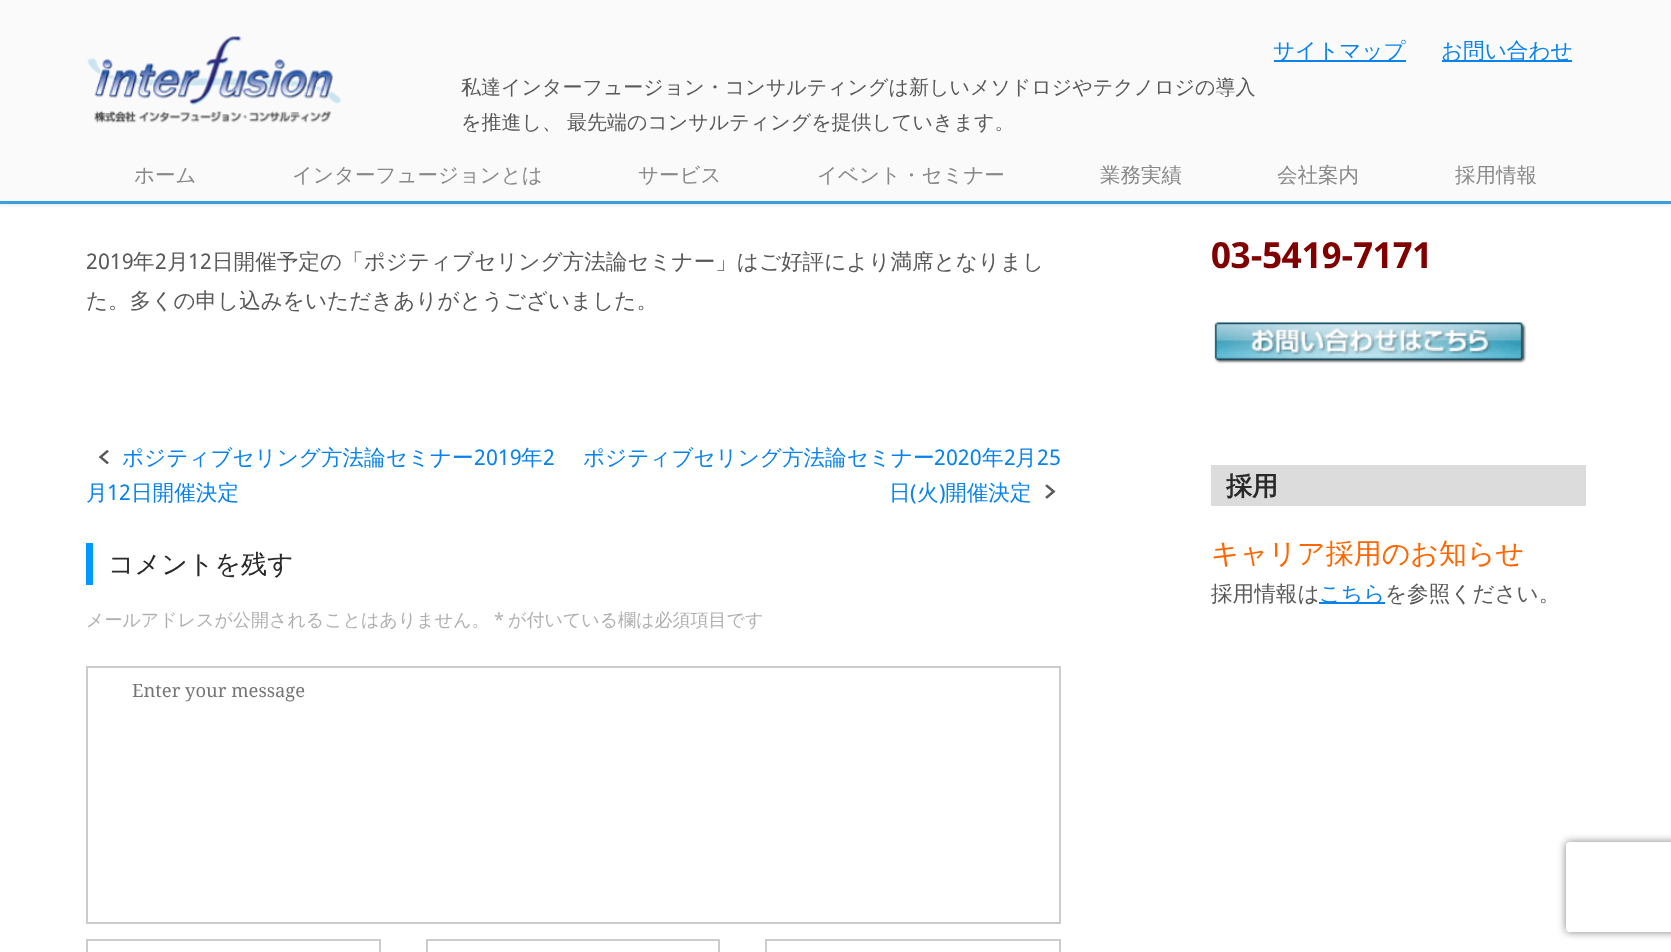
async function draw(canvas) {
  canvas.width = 1671;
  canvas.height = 952;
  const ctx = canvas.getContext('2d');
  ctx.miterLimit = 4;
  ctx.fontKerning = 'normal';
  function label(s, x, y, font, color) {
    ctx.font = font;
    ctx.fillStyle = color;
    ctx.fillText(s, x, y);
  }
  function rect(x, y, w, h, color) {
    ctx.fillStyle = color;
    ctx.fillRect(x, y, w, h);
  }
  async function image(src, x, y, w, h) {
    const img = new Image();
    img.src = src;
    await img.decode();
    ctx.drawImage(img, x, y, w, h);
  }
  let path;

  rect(0, 0, 1671, 952, '#fff');
  ctx.fillStyle = '#00000012';
  ctx.filter = 'blur(1px)';
  ctx.beginPath();
  ctx.rect(0, 2, 1671, 204);
  ctx.fill();
  ctx.filter = 'none';
  rect(0, 0, 1671, 201, '#fafafa');
  rect(0, 201, 1671, 3, '#3a9fdd');
  rect(1274, 60, 132, 2, '#0982ed');
  label('サイトマップ', 1273, 58, '500 21.6px WenQuanYi Zen Hei', '#0982ed');
  rect(1442, 60, 130, 2, '#0982ed');
  label('お問い合わせ', 1441, 58, '500 21.6px WenQuanYi Zen Hei', '#0982ed');
  await image('assets/img1.png', 87, 36, 254, 88);
  label('私達インターフュージョン・コンサルティングは新しいメソドロジやテクノロジの導入', 461, 94, '500 20px WenQuanYi Zen Hei', '#595959');
  ctx.wordSpacing = '-1px';
  label('を推進し、 最先端のコンサルティングを提供していきます。', 461, 129, '500 20px WenQuanYi Zen Hei', '#595959');
  ctx.wordSpacing = '0px';
  label('ホーム', 134, 182, '500 20.5px WenQuanYi Zen Hei', '#898989');
  label('インターフュージョンとは', 292, 182, '500 20.5px WenQuanYi Zen Hei', '#898989');
  label('サービス', 638, 182, '500 20.5px WenQuanYi Zen Hei', '#898989');
  label('イベント・セミナー', 817, 182, '500 20.5px WenQuanYi Zen Hei', '#898989');
  label('業務実績', 1100, 182, '500 20.5px WenQuanYi Zen Hei', '#898989');
  label('会社案内', 1277, 182, '500 20.5px WenQuanYi Zen Hei', '#898989');
  label('採用情報', 1455, 182, '500 20.5px WenQuanYi Zen Hei', '#898989');
  label('2019', 86, 269, '21.6px Droid Sans', '#595959');
  label('年', 133, 269, '500 21.6px WenQuanYi Zen Hei', '#595959');
  label('2', 155, 269, '21.6px Droid Sans', '#595959');
  label('月', 167, 269, '500 21.6px WenQuanYi Zen Hei', '#595959');
  label('12', 188, 269, '21.6px Droid Sans', '#595959');
  label('日開催予定の「ポジティブセリング方法論セミナー」はご好評により満席となりまし', 212, 269, '500 21.6px WenQuanYi Zen Hei', '#595959');
  label('た。多くの申し込みをいただきありがとうございました。', 86, 308, '500 21.6px WenQuanYi Zen Hei', '#595959');
  await image('assets/img2.png', 98, 450, 11, 15);
  label('ポジティブセリング方法論セミナー', 122, 465, '500 21.6px WenQuanYi Zen Hei', '#0982ed');
  label('2019', 474, 465, '21.6px Droid Sans', '#0982ed');
  label('年', 521, 465, '500 21.6px WenQuanYi Zen Hei', '#0982ed');
  label('2', 543, 465, '21.6px Droid Sans', '#0982ed');
  label('月', 86, 500, '500 21.6px WenQuanYi Zen Hei', '#0982ed');
  label('12', 107, 500, '21.6px Droid Sans', '#0982ed');
  label('日開催決定', 131, 500, '500 21.6px WenQuanYi Zen Hei', '#0982ed');
  label('ポジティブセリング方法論セミナー', 583, 465, '500 21.6px WenQuanYi Zen Hei', '#0982ed');
  label('2020', 934, 465, '21.6px Droid Sans', '#0982ed');
  label('年', 982, 465, '500 21.6px WenQuanYi Zen Hei', '#0982ed');
  label('2', 1004, 465, '21.6px Droid Sans', '#0982ed');
  label('月', 1015, 465, '500 21.6px WenQuanYi Zen Hei', '#0982ed');
  label('25', 1037, 465, '21.6px Droid Sans', '#0982ed');
  label('日 火 開催決定', 889, 500, '500 21.6px WenQuanYi Zen Hei', '#0982ed');
  label('(', 910, 500, '21.6px Droid Sans', '#0982ed');
  label(')', 939, 500, '21.6px Droid Sans', '#0982ed');
  await image('assets/img3.png', 1045, 484, 11, 15);
  rect(86, 543, 7, 42, '#09f');
  label('コメントを残す', 108, 573, '500 26px WenQuanYi Zen Hei', '#292929');
  label('メールアドレスが公開されることはありません。', 86, 626, '500 18px WenQuanYi Zen Hei', '#b0b0b0');
  label('*', 494, 626, '18px Droid Sans', '#b0b0b0');
  label('が付いている欄は必須項目です', 508, 626, '500 18px WenQuanYi Zen Hei', '#b0b0b0');
  ctx.strokeStyle = '#ccc';
  ctx.lineWidth = 2;
  ctx.strokeRect(87, 667, 973, 256);
  label('Enter your message', 132, 697, '18.4px Droid Serif', '#757575');
  ctx.strokeRect(87, 940, 293, 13);
  ctx.strokeRect(427, 940, 292, 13);
  ctx.strokeRect(766, 940, 294, 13);
  label('03-5419-7171', 1211, 268, 'bold 36px Droid Sans', '#800000');
  await image('assets/img4.png', 1214, 322, 313, 42);
  rect(1211, 465, 375, 41, '#dcdcdc');
  label('採用', 1226, 495, 'bold 26px WenQuanYi Zen Hei', '#292929');
  label('キャリア採用のお知らせ', 1211, 563, '500 28px WenQuanYi Zen Hei', '#f60');
  label('採用情報は', 1211, 601, '500 21.6px WenQuanYi Zen Hei', '#595959');
  rect(1319, 602, 66, 2, '#0982ed');
  label('こちら', 1319, 601, '500 21.6px WenQuanYi Zen Hei', '#0982ed');
  label('を参照ください。', 1385, 601, '500 21.6px WenQuanYi Zen Hei', '#595959');
  ctx.save();
  path = new Path2D('M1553 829H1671V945H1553ZM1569 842H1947C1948.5 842 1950 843.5 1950 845V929C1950 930.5 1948.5 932 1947 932H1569C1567.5 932 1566 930.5 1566 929V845C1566 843.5 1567.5 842 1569 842Z');
  ctx.clip(path, 'evenodd');
  ctx.fillStyle = '#808080';
  ctx.filter = 'blur(4px)';
  ctx.beginPath();
  ctx.roundRect(1566, 842, 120, 90, 3);
  ctx.fill();
  ctx.filter = 'none';
  ctx.restore();
}

draw(document.querySelector('canvas'));
